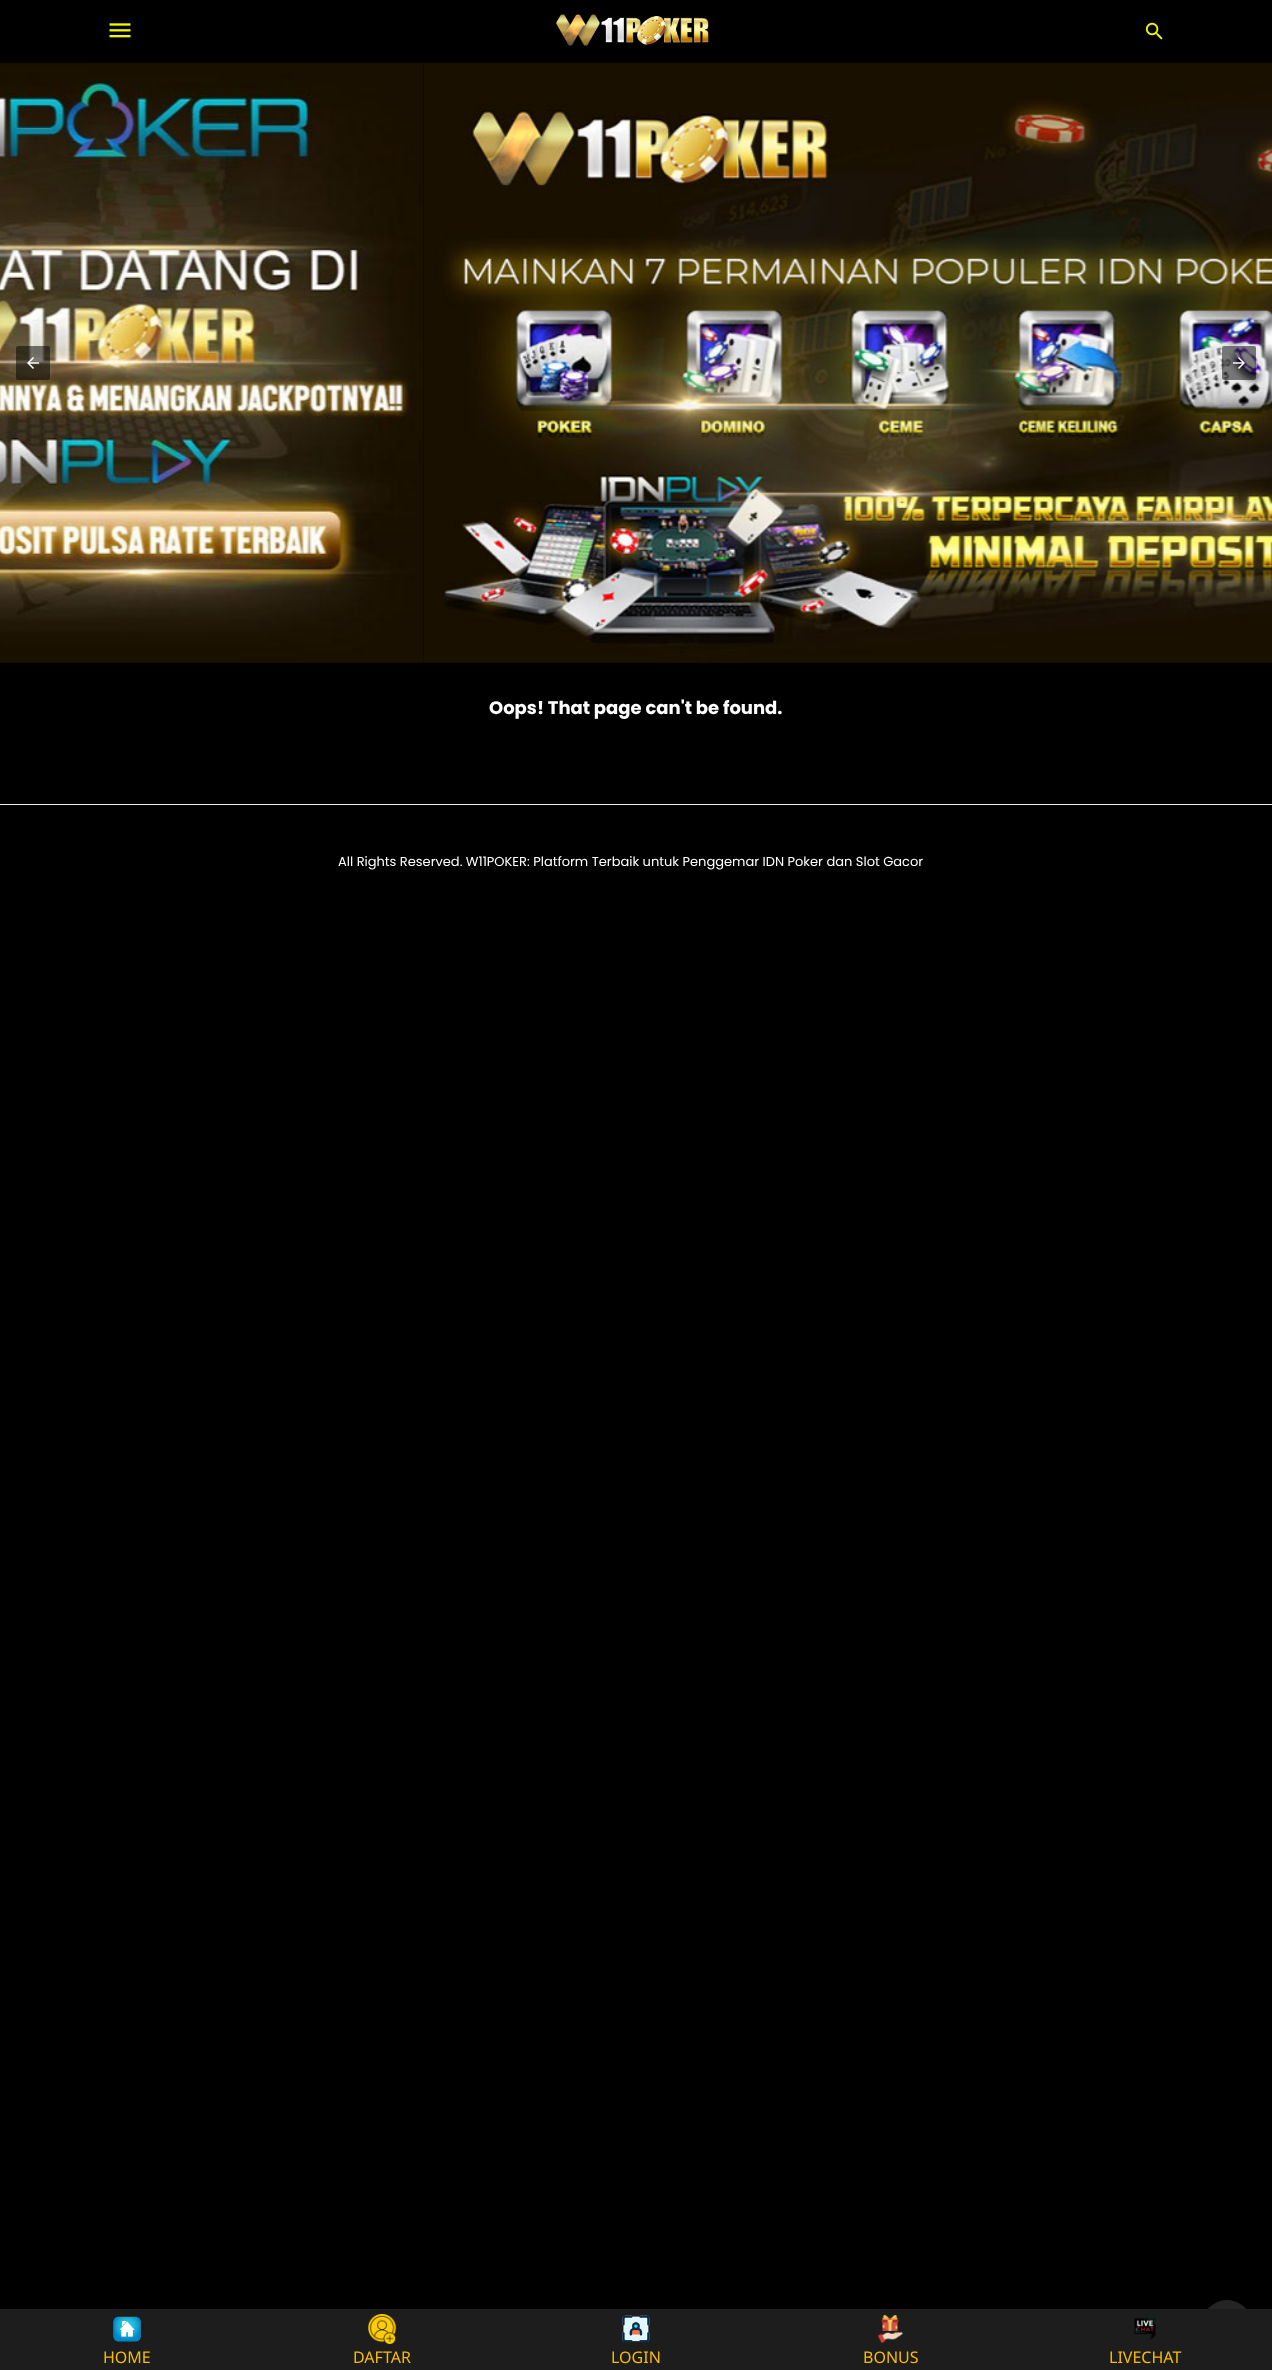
async function draw(canvas) {
  canvas.width = 1272;
  canvas.height = 2370;
  const ctx = canvas.getContext('2d');
  ctx.miterLimit = 4;
  ctx.fontKerning = 'normal';
  function label(s, x, y, font, color) {
    ctx.font = font;
    ctx.fillStyle = color;
    ctx.fillText(s, x, y);
  }
  function rect(x, y, w, h, color) {
    ctx.fillStyle = color;
    ctx.fillRect(x, y, w, h);
  }
  function roundedRect(x, y, w, h, r, color) {
    ctx.fillStyle = color;
    ctx.beginPath();
    ctx.roundRect(x, y, w, h, r);
    ctx.fill();
  }
  async function image(src, x, y, w, h) {
    const img = new Image();
    img.src = src;
    await img.decode();
    ctx.drawImage(img, x, y, w, h);
  }

  rect(0, 0, 1272, 2370, '#000');
  await image('assets/img1.png', 109, 23, 22, 15);
  await image('assets/img2.png', 556, 14, 153, 32);
  await image('assets/img3.png', 1145, 22, 18, 18);
  await image('assets/img4.png', 0, 63, 424, 600);
  await image('assets/img5.png', 424, 63, 848, 600);
  roundedRect(16, 346, 34, 34, 2, '#00000080');
  await image('assets/img6.png', 27, 357, 12, 12);
  roundedRect(1222, 346, 34, 34, 2, '#00000080');
  await image('assets/img7.png', 1233, 357, 12, 12);
  label('Oops! That page can\'t be found.', 489, 714, 'bold 18px Poppins', '#fff');
  rect(0, 804, 1272, 1, '#eee');
  label('All Rights Reserved. W11POKER: Platform Terbaik untuk Penggemar IDN Poker dan Slot Gacor', 338, 866, '13px Poppins', '#fff');
  ctx.fillStyle = '#242424';
  ctx.beginPath();
  ctx.arc(1227, 2325, 25, 0, 2 * Math.PI);
  ctx.fill();
  rect(0, 2309, 1272, 61, '#1d1d1d');
  await image('assets/img8.png', 113, 2316, 28, 26);
  label('HOME', 103, 2363, '16px Noto Sans', '#f9bc00');
  await image('assets/img9.png', 368, 2314, 29, 30);
  label('DAFTAR', 353, 2363, '16px Noto Sans', '#f9bc00');
  await image('assets/img10.png', 622, 2315, 28, 28);
  label('LOGIN', 611, 2363, '16px Noto Sans', '#f9bc00');
  await image('assets/img11.png', 877, 2315, 27, 29);
  label('BONUS', 863, 2363, '16px Noto Sans', '#f9bc00');
  await image('assets/img12.png', 1134, 2318, 22, 22);
  label('LIVECHAT', 1109, 2363, '16px Noto Sans', '#f9bc00');
}

draw(document.querySelector('canvas'));
